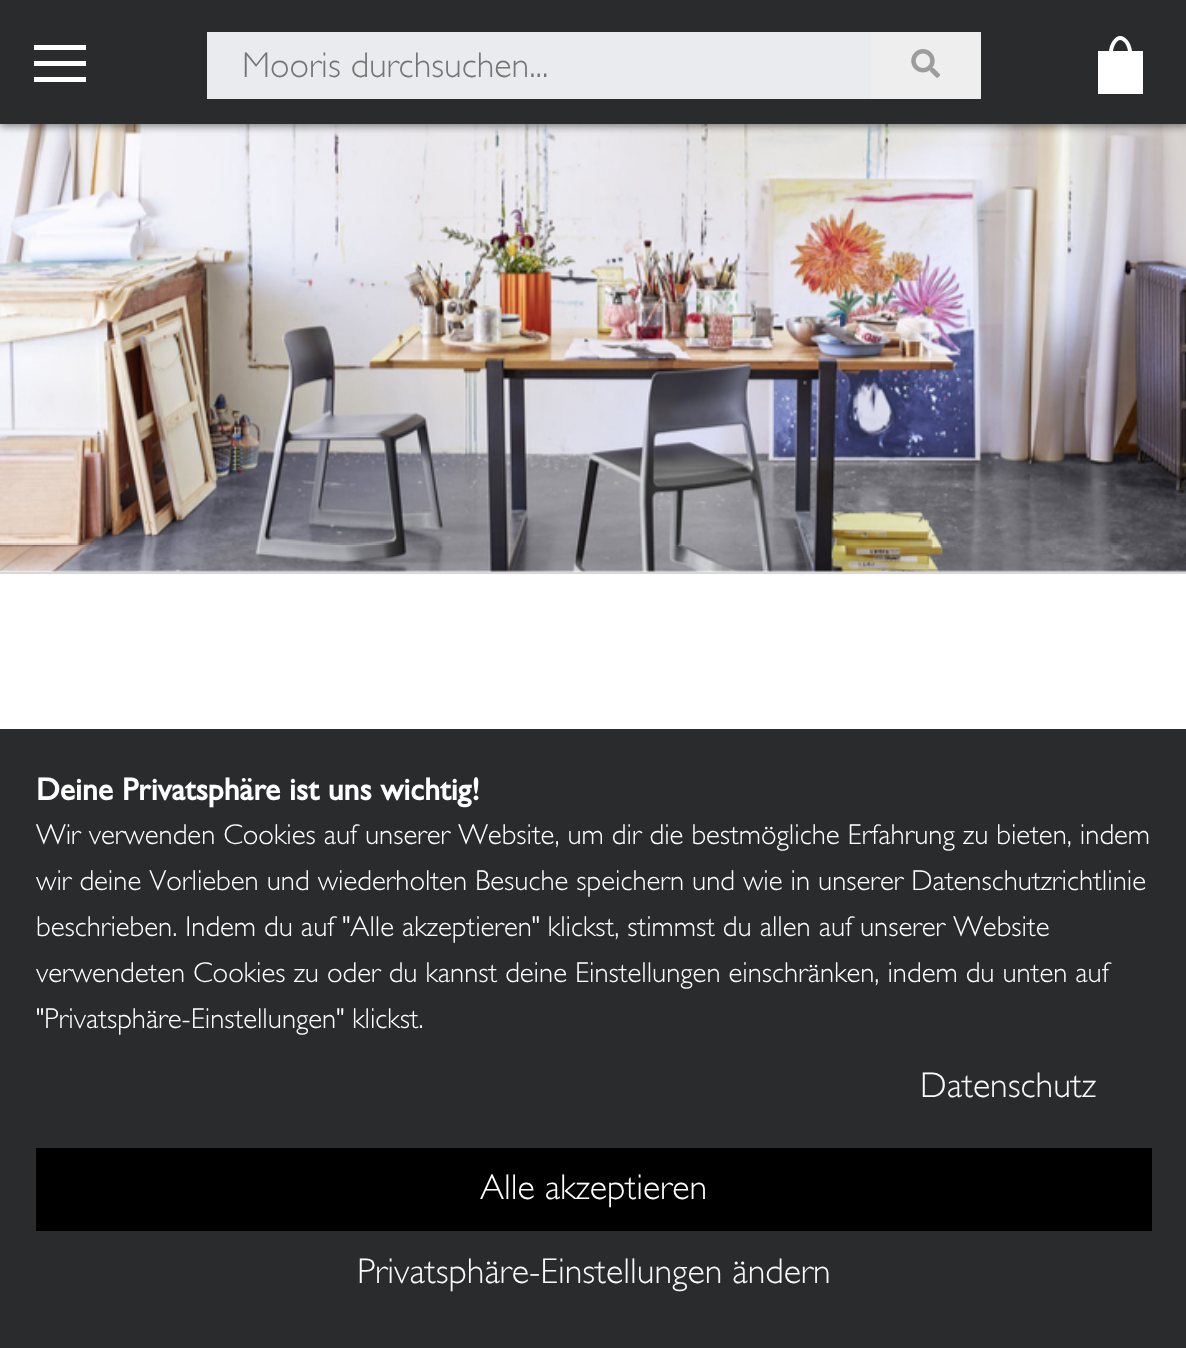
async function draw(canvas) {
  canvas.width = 1186;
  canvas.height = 1348;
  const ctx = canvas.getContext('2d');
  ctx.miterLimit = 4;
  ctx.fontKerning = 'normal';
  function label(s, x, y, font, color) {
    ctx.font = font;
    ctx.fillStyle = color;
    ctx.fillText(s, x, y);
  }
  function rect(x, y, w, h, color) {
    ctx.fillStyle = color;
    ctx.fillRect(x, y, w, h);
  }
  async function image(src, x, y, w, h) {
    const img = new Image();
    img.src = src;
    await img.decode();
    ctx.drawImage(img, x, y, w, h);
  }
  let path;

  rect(0, 0, 1186, 1348, '#fff');
  await image('assets/img2.png', 0, 124, 1186, 448);
  ctx.fillStyle = '#00000080';
  ctx.filter = 'blur(4.5px)';
  ctx.beginPath();
  ctx.rect(0, 2, 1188, 124);
  ctx.fill();
  ctx.filter = 'none';
  rect(0, 0, 1186, 124, '#292b2c');
  rect(34, 61, 52, 5, '#fff');
  rect(34, 45, 52, 5, '#fff');
  rect(34, 77, 52, 5, '#fff');
  rect(207, 32, 774, 67, '#e9ebef');
  label('Mooris durchsuchen...', 242, 77, '300 36px Gill Sans', '#757575');
  ctx.fillStyle = '#eee';
  ctx.beginPath();
  ctx.roundRect(871, 32, 110, 67, [0, 5, 5, 0]);
  ctx.fill();
  await image('assets/img1.png', 911, 49, 29, 29);
  ctx.fillStyle = '#fff';
  path = new Path2D('M1120 36C1126 36 1131 43 1132 51H1143V94H1098V51H1109C1110 43 1115 36 1120 36ZM1120 40C1117 40 1114 45 1113 51H1128C1127 45 1124 40 1120 40Z');
  ctx.fill(path);
  rect(0, 572, 1186, 2, '#d8d8d8');
  rect(0, 729, 1186, 619, '#292b2c');
  label('Deine Privatsphäre ist uns wichtig!', 36, 800, 'bold 31.75px Gill Sans', '#fff');
  label('Wir verwenden Cookies auf unserer Website, um dir die bestmögliche Erfahrung zu bieten, indem', 36, 844, '300 28.8px Gill Sans', '#fff');
  label('wir deine Vorlieben und wiederholten Besuche speichern und wie in unserer Datenschutzrichtlinie', 36, 890, '300 28.8px Gill Sans', '#fff');
  label('beschrieben. Indem du auf "Alle akzeptieren" klickst, stimmst du allen auf unserer Website', 36, 936, '300 28.8px Gill Sans', '#fff');
  label('verwendeten Cookies zu oder du kannst deine Einstellungen einschränken, indem du unten auf', 36, 982, '300 28.8px Gill Sans', '#fff');
  label('"Privatsphäre-Einstellungen" klickst.', 36, 1028, '300 28.8px Gill Sans', '#fff');
  label('Datenschutz', 920, 1097, '300 36px Gill Sans', '#f8f9fa');
  rect(36, 1148, 1116, 83, '#000');
  label('Alle akzeptieren', 480, 1199, '300 36px Gill Sans', '#fff');
  label('Privatsphäre-Einstellungen ändern', 357, 1283, '300 36px Gill Sans', '#f8f9fa');
}

draw(document.querySelector('canvas'));
